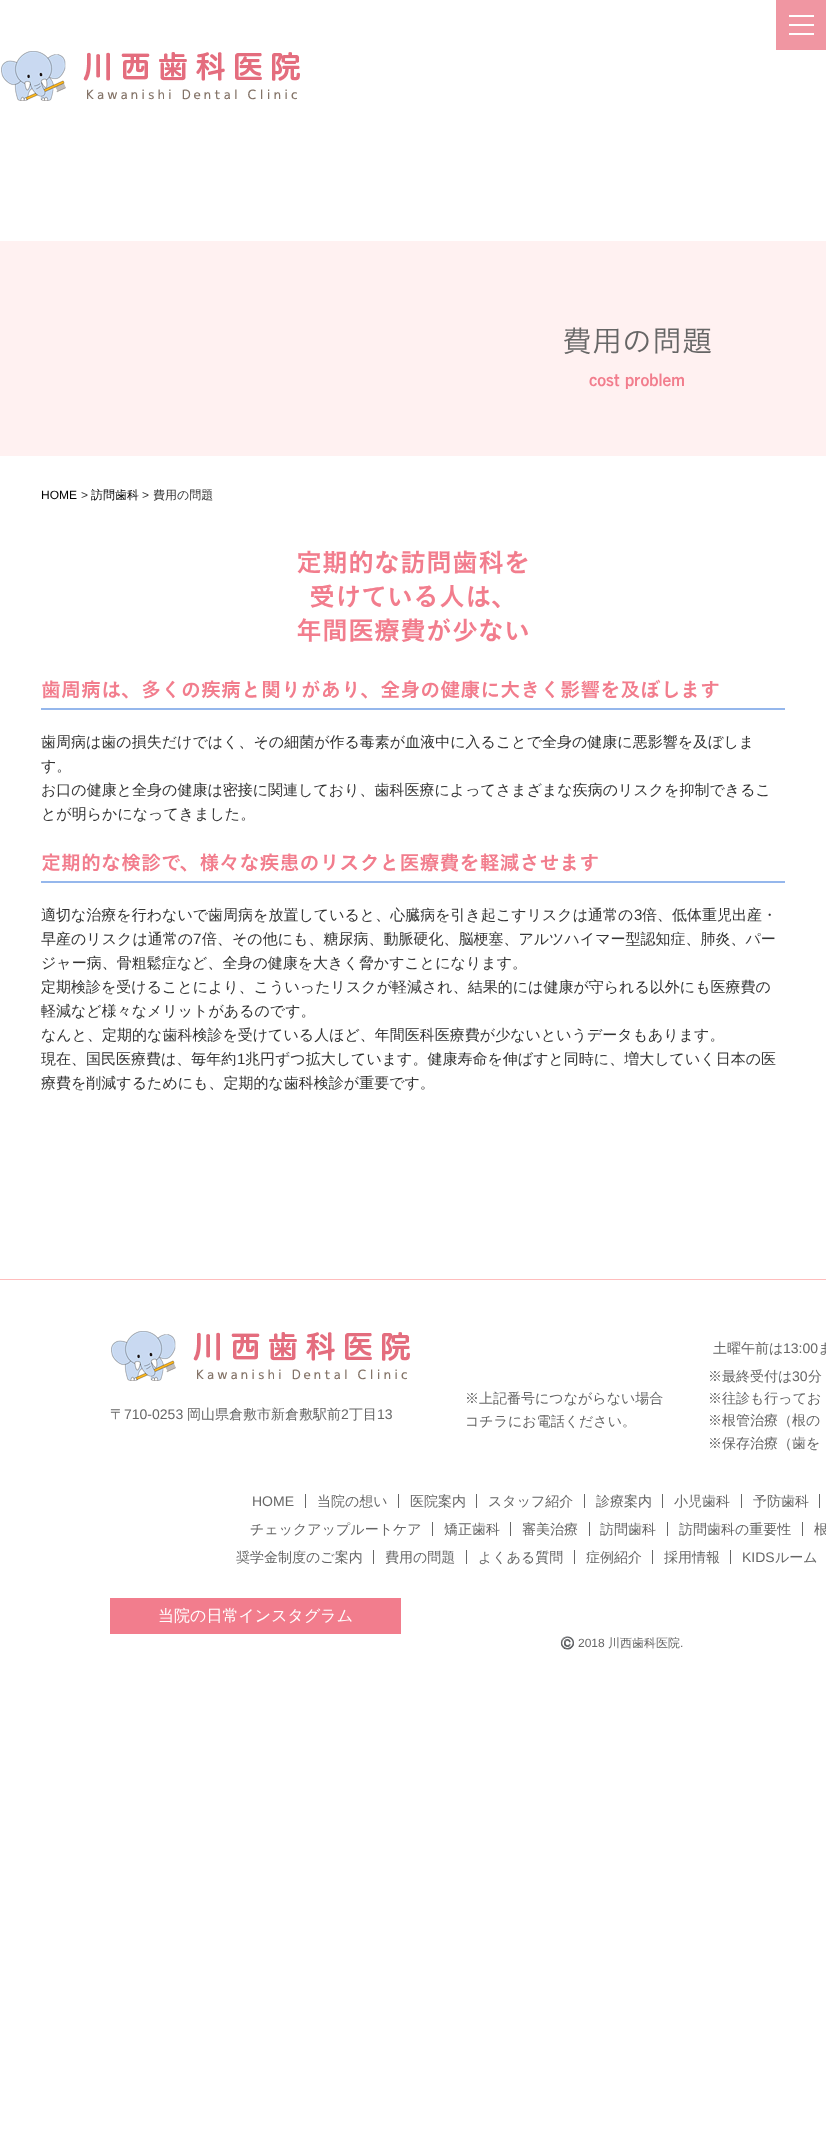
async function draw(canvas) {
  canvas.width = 826;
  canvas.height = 2148;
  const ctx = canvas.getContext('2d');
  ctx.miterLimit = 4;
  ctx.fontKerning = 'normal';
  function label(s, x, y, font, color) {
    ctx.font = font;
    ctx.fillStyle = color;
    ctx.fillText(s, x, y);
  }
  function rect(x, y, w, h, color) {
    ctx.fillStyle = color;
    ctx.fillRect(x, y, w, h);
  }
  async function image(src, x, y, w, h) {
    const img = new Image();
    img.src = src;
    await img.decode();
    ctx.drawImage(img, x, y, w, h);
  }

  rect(0, 0, 826, 2148, '#fff');
  rect(776, 0, 50, 50, '#f096a2');
  rect(789, 15, 25, 2, '#fff');
  rect(789, 24, 25, 2, '#fff');
  rect(789, 33, 25, 2, '#fff');
  await image('assets/img1.png', 1, 51, 299, 50);
  rect(0, 241, 826, 215, '#fff1f1');
  label('費用の問題', 562, 352, '300 30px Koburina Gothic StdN', '#666');
  label('cost problem', 589, 386, '600 16px Koburina Gothic StdN', '#f27d8d');
  label('HOME', 41, 499, '12px Liberation Sans', '#000');
  label('>', 81, 499, '12px Liberation Sans', '#333');
  label('訪問歯科', 91, 499, '500 12px WenQuanYi Zen Hei', '#000');
  label('>', 142, 499, '12px Liberation Sans', '#333');
  label('費用の問題', 153, 499, '500 12px WenQuanYi Zen Hei', '#333');
  label('定期的な訪問歯科を', 296, 572, '600 26px Koburina Gothic StdN', '#f27d8d');
  label('受けている人は、', 309, 606, '600 26px Koburina Gothic StdN', '#f27d8d');
  label('年間医療費が少ない', 296, 640, '600 26px Koburina Gothic StdN', '#f27d8d');
  rect(41, 708, 744, 2, '#95b7ec');
  label('歯周病は、多くの疾病と関りがあり、全身の健康に大きく影響を及ぼします', 41, 697, '600 20px Koburina Gothic StdN', '#f27d8d');
  label('歯周病は歯の損失だけではく、その細菌が作る毒素が血液中に入ることで全身の健康に悪影響を及ぼしま', 41, 747, '500 15px WenQuanYi Zen Hei', '#333');
  label('す。', 41, 771, '500 15px WenQuanYi Zen Hei', '#333');
  label('お口の健康と全身の健康は密接に関連しており、歯科医療によってさまざまな疾病のリスクを抑制できるこ', 41, 795, '500 15px WenQuanYi Zen Hei', '#333');
  label('とが明らかになってきました。', 41, 819, '500 15px WenQuanYi Zen Hei', '#333');
  rect(41, 881, 744, 2, '#95b7ec');
  label('定期的な検診で、様々な疾患のリスクと医療費を軽減させます', 41, 870, '600 20px Koburina Gothic StdN', '#f27d8d');
  label('適切な治療を行わないで歯周病を放置していると、心臓病を引き起こすリスクは通常の', 41, 920, '500 15px WenQuanYi Zen Hei', '#333');
  label('3', 634, 920, '15px Liberation Sans', '#333');
  label('倍、低体重児出産・', 642, 920, '500 15px WenQuanYi Zen Hei', '#333');
  label('早産のリスクは通常の', 41, 944, '500 15px WenQuanYi Zen Hei', '#333');
  label('7', 193, 944, '15px Liberation Sans', '#333');
  label('倍、その他にも、糖尿病、動脈硬化、脳梗塞、アルツハイマー型認知症、肺炎、パー', 202, 944, '500 15px WenQuanYi Zen Hei', '#333');
  label('ジャー病、骨粗鬆症など、全身の健康を大きく脅かすことになります。', 41, 968, '500 15px WenQuanYi Zen Hei', '#333');
  label('定期検診を受けることにより、こういったリスクが軽減され、結果的には健康が守られる以外にも医療費の', 41, 992, '500 15px WenQuanYi Zen Hei', '#333');
  label('軽減など様々なメリットがあるのです。', 41, 1016, '500 15px WenQuanYi Zen Hei', '#333');
  label('なんと、定期的な歯科検診を受けている人ほど、年間医科医療費が少ないというデータもあります。', 41, 1040, '500 15px WenQuanYi Zen Hei', '#333');
  label('現在、国民医療費は、毎年約', 41, 1064, '500 15px WenQuanYi Zen Hei', '#333');
  label('1', 237, 1064, '15px Liberation Sans', '#333');
  label('兆円ずつ拡大しています。健康寿命を伸ばすと同時に、増大していく日本の医', 245, 1064, '500 15px WenQuanYi Zen Hei', '#333');
  label('療費を削減するためにも、定期的な歯科検診が重要です。', 41, 1088, '500 15px WenQuanYi Zen Hei', '#333');
  rect(0, 1279, 826, 1, '#ffbdbd');
  await image('assets/img1.png', 111, 1331, 299, 50);
  label('〒', 110, 1419, '500 14px WenQuanYi Zen Hei', '#666');
  label('710-0253', 124, 1419, '14px Liberation Sans', '#666');
  label('岡山県倉敷市新倉敷駅前', 187, 1419, '500 14px WenQuanYi Zen Hei', '#666');
  label('2', 341, 1419, '14px Liberation Sans', '#666');
  label('丁目', 349, 1419, '500 14px WenQuanYi Zen Hei', '#666');
  label('13', 377, 1419, '14px Liberation Sans', '#666');
  label('※上記番号につながらない場合', 465, 1403, '500 14px WenQuanYi Zen Hei', '#666');
  label('コチラにお電話ください。', 465, 1426, '500 14px WenQuanYi Zen Hei', '#666');
  label('土曜午前は', 713, 1353, '500 14px WenQuanYi Zen Hei', '#666');
  label('13:00', 783, 1353, '14px Liberation Sans', '#666');
  label('ま', 818, 1353, '500 14px WenQuanYi Zen Hei', '#666');
  label('※最終受付は', 708, 1381, '500 14px WenQuanYi Zen Hei', '#666');
  label('30', 792, 1381, '14px Liberation Sans', '#666');
  label('分', 808, 1381, '500 14px WenQuanYi Zen Hei', '#666');
  label('※往診も行ってお', 708, 1403, '500 14px WenQuanYi Zen Hei', '#666');
  label('※根管治療（根の', 708, 1425, '500 14px WenQuanYi Zen Hei', '#666');
  label('※保存治療（歯を', 708, 1448, '500 14px WenQuanYi Zen Hei', '#666');
  rect(305, 1494, 1, 14, '#666');
  label('HOME', 252, 1506, '14px Liberation Sans', '#666');
  rect(398, 1494, 1, 14, '#666');
  label('当院の想い', 317, 1506, '500 14px WenQuanYi Zen Hei', '#666');
  rect(476, 1494, 1, 14, '#666');
  label('医院案内', 410, 1506, '500 14px WenQuanYi Zen Hei', '#666');
  rect(584, 1494, 1, 14, '#666');
  label('スタッフ紹介', 488, 1506, '500 14px WenQuanYi Zen Hei', '#666');
  rect(662, 1494, 1, 14, '#666');
  label('診療案内', 596, 1506, '500 14px WenQuanYi Zen Hei', '#666');
  rect(741, 1494, 1, 14, '#666');
  label('小児歯科', 674, 1506, '500 14px WenQuanYi Zen Hei', '#666');
  rect(819, 1494, 1, 14, '#666');
  label('予防歯科', 753, 1506, '500 14px WenQuanYi Zen Hei', '#666');
  rect(432, 1522, 1, 14, '#666');
  label('チェックアップルートケア', 250, 1534, '500 14px WenQuanYi Zen Hei', '#666');
  rect(510, 1522, 1, 14, '#666');
  label('矯正歯科', 444, 1534, '500 14px WenQuanYi Zen Hei', '#666');
  rect(589, 1522, 1, 14, '#666');
  label('審美治療', 522, 1534, '500 14px WenQuanYi Zen Hei', '#666');
  rect(667, 1522, 1, 14, '#666');
  label('訪問歯科', 600, 1534, '500 14px WenQuanYi Zen Hei', '#666');
  rect(802, 1522, 1, 14, '#666');
  label('訪問歯科の重要性', 679, 1534, '500 14px WenQuanYi Zen Hei', '#666');
  label('根', 814, 1534, '500 14px WenQuanYi Zen Hei', '#666');
  rect(373, 1550, 1, 14, '#666');
  label('奨学金制度のご案内', 236, 1562, '500 14px WenQuanYi Zen Hei', '#666');
  rect(466, 1550, 1, 14, '#666');
  label('費用の問題', 385, 1562, '500 14px WenQuanYi Zen Hei', '#666');
  rect(574, 1550, 1, 14, '#666');
  label('よくある質問', 478, 1562, '500 14px WenQuanYi Zen Hei', '#666');
  rect(652, 1550, 1, 14, '#666');
  label('症例紹介', 586, 1562, '500 14px WenQuanYi Zen Hei', '#666');
  rect(730, 1550, 1, 14, '#666');
  label('採用情報', 664, 1562, '500 14px WenQuanYi Zen Hei', '#666');
  label('KIDS', 742, 1562, '14px Liberation Sans', '#666');
  label('ルーム', 775, 1562, '500 14px WenQuanYi Zen Hei', '#666');
  rect(110, 1598, 291, 36, '#f27d8d');
  label('当院の日常インスタグラム', 158, 1621, '500 16px WenQuanYi Zen Hei', '#fff');
  label('©️', 560, 1647, '12px Noto Color Emoji', '#666');
  label('2018', 578, 1647, '12px Liberation Sans', '#666');
  label('川西歯科医院', 608, 1647, '500 12px WenQuanYi Zen Hei', '#666');
  label('.', 680, 1647, '12px Liberation Sans', '#666');
}

draw(document.querySelector('canvas'));
